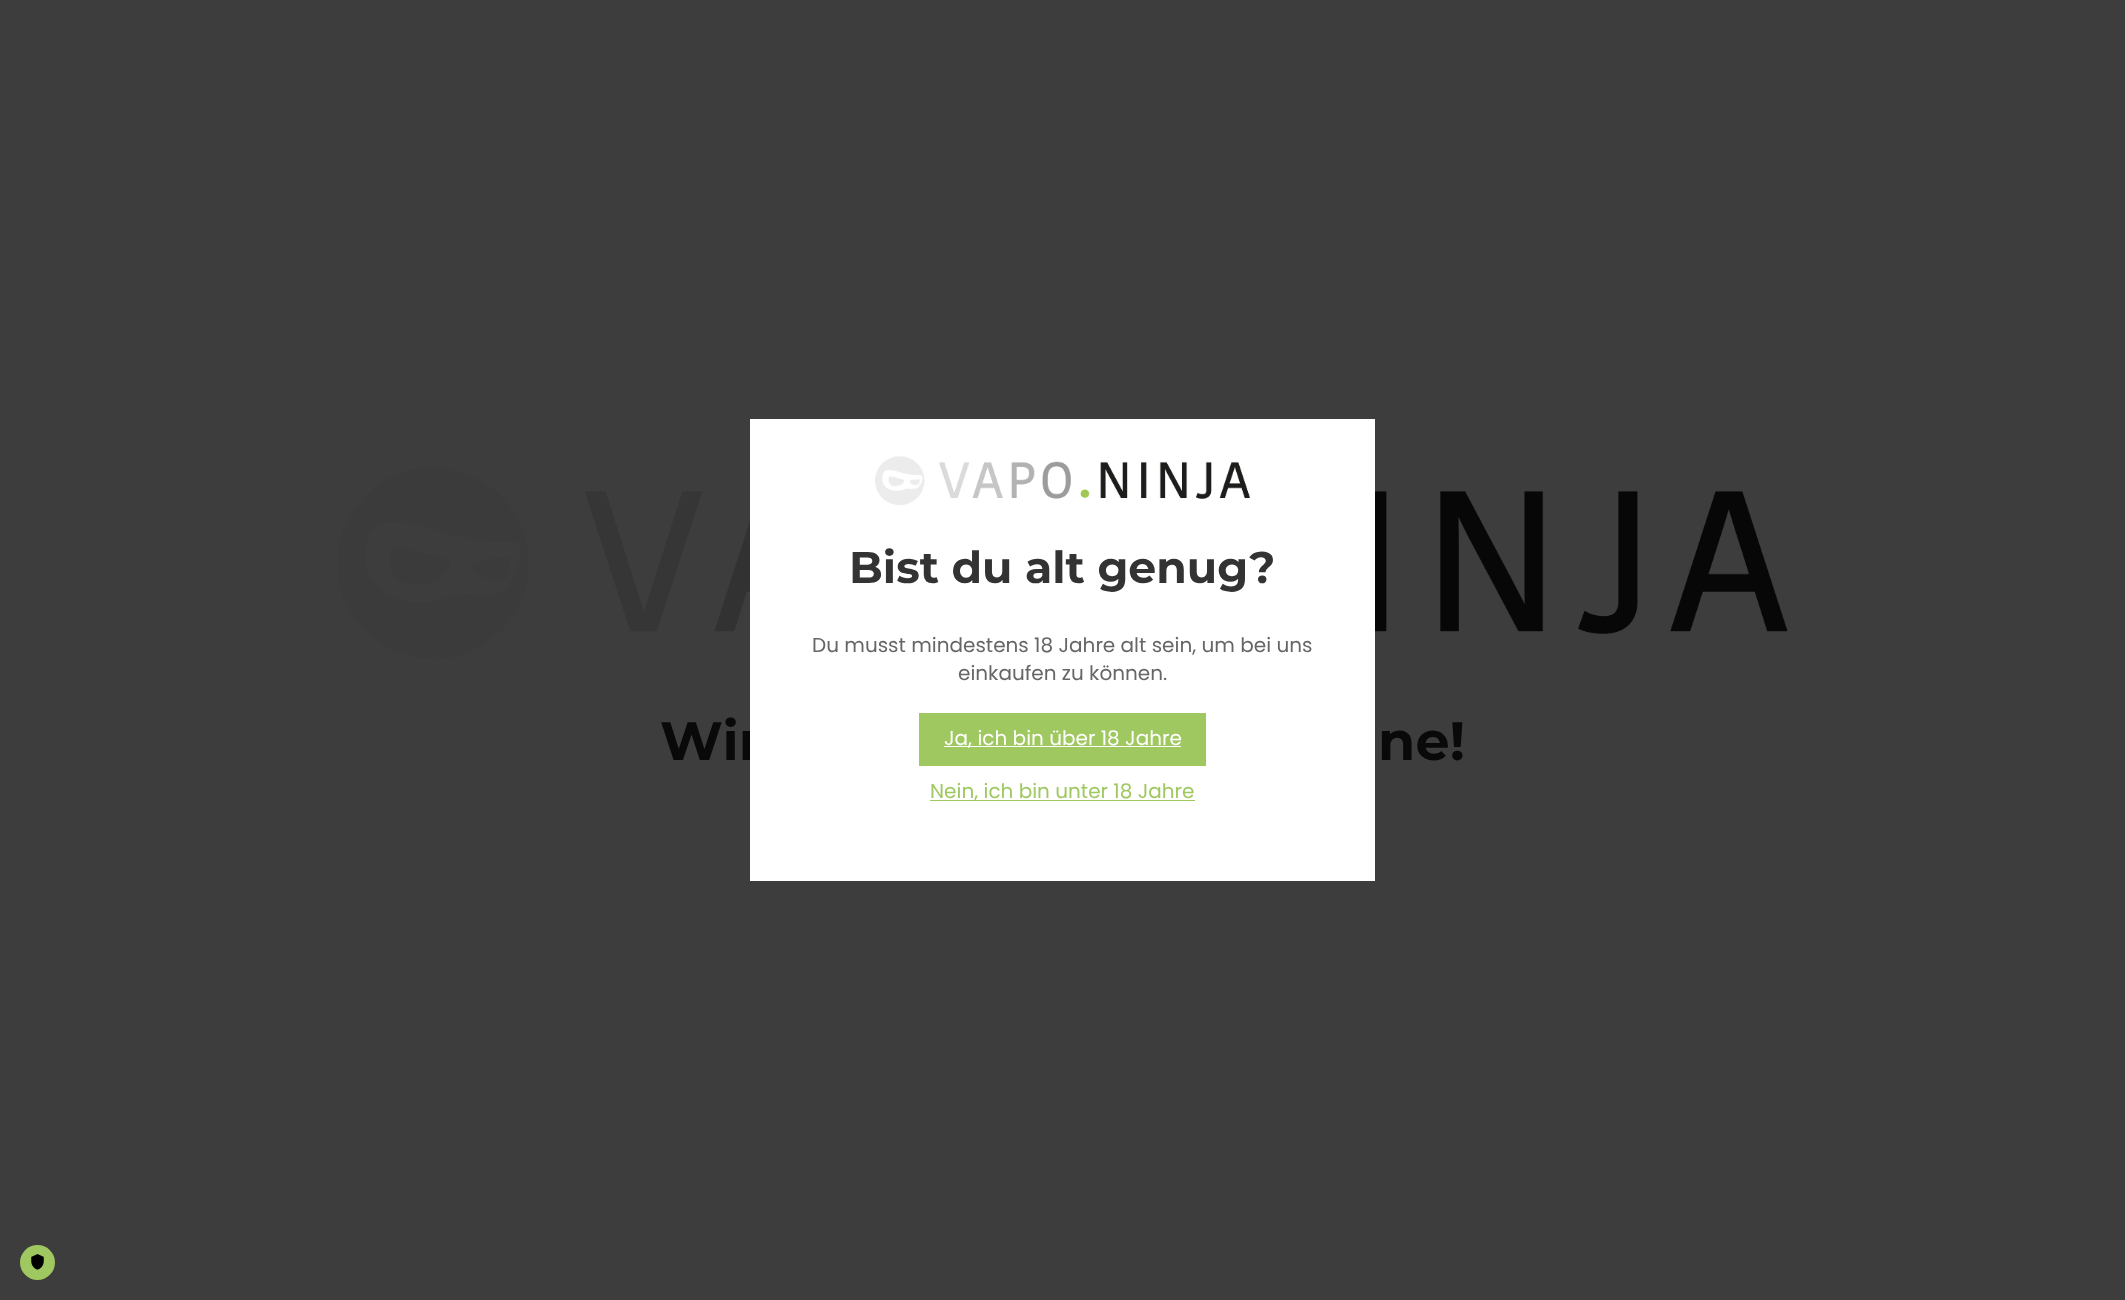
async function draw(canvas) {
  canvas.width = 2125;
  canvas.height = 1300;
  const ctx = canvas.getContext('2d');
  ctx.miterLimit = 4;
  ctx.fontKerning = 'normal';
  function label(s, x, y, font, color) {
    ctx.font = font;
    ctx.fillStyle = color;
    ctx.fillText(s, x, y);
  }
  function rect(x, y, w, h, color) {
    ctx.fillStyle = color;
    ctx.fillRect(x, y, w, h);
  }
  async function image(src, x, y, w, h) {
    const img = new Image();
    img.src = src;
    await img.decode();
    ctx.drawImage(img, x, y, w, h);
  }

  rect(0, 0, 2125, 1300, '#3d3d3d');
  await image('assets/img2.png', 338, 468, 1450, 191);
  label('Wir', 660, 760, 'bold 54px Montserrat', '#090909');
  rect(750, 419, 625, 462, '#fff');
  await image('assets/img1.png', 875, 456, 375, 50);
  label('Bist du alt genug?', 849, 583, 'bold 44.25px Montserrat', '#333');
  label('Du musst mindestens 18 Jahre alt sein, um bei uns', 812, 652, '20px Poppins', '#666');
  label('einkaufen zu können.', 958, 680, '20px Poppins', '#666');
  rect(919, 713, 287, 53, '#9fc860');
  rect(944, 746, 237, 1, '#fff');
  label('Ja, ich bin über 18 Jahre', 944, 745, '20px Poppins', '#fff');
  rect(930, 800, 265, 1, '#9fc860');
  label('Nein, ich bin unter 18 Jahre', 930, 798, '20px Poppins', '#9fc860');
  label('ne!', 1378, 760, 'bold 54px Montserrat', '#090909');
  ctx.fillStyle = '#9fc860';
  ctx.beginPath();
  ctx.arc(37.5, 1262.5, 17.5, 0, 2 * Math.PI);
  ctx.fill();
  await image('assets/img3.png', 31, 1254, 13, 16);
}

draw(document.querySelector('canvas'));
